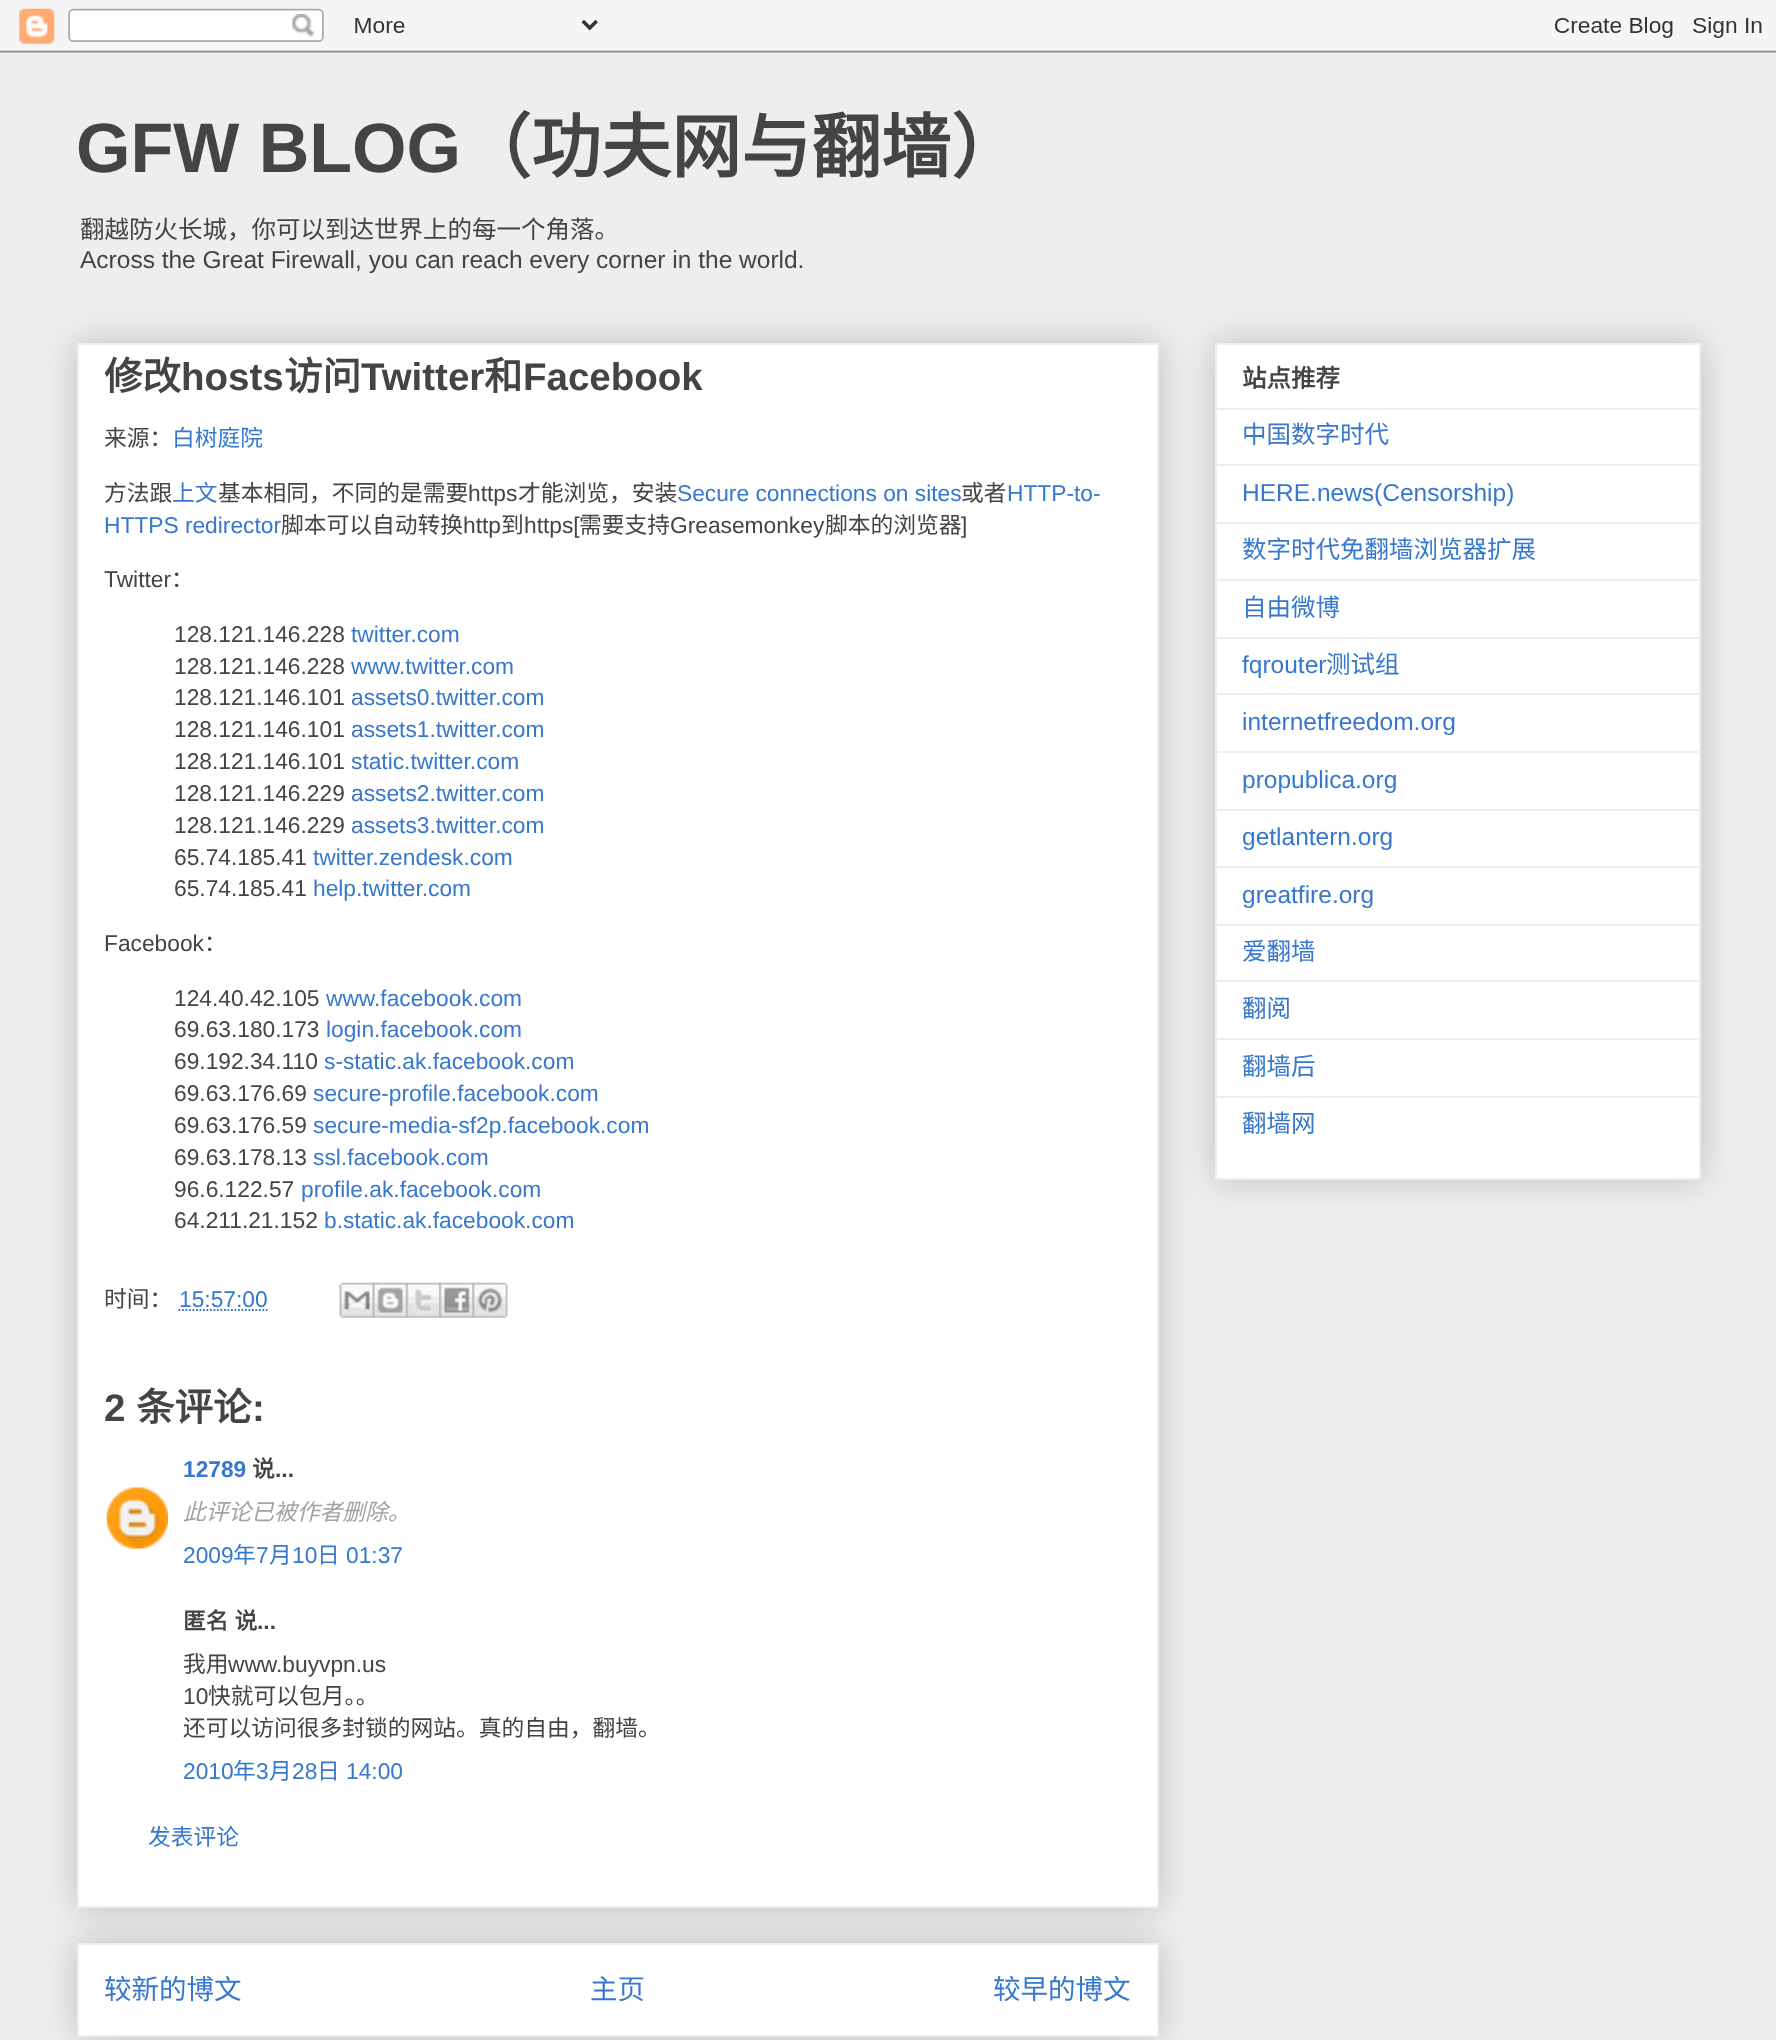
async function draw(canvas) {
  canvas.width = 1776;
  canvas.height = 2040;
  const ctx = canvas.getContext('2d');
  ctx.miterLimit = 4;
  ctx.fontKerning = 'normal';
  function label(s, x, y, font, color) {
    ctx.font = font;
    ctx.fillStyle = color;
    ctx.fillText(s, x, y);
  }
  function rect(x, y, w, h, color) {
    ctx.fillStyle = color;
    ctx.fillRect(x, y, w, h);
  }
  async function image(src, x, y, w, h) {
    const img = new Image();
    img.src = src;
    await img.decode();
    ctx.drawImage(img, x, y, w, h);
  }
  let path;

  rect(0, 0, 1776, 2040, '#eee');
  await image('assets/img1.png', 0, 0, 1776, 53);
  label('GFW BLOG', 76, 172, 'bold 70px Liberation Sans', '#444');
  label('（功夫网与翻墙）', 461, 172, 'bold 70px Noto Sans CJK SC', '#444');
  label('翻越防火长城，你可以到达世界上的每一个角落。', 80, 238, '24.5px Noto Sans CJK SC', '#444');
  label('Across the Great Firewall, you can reach every corner in the world.', 80, 268, '24.5px Liberation Sans', '#444');
  ctx.fillStyle = '#00000033';
  ctx.filter = 'blur(17.5px)';
  ctx.beginPath();
  ctx.rect(77, 1943, 1082, 94);
  ctx.fill();
  ctx.filter = 'none';
  ctx.fillStyle = '#fff';
  ctx.beginPath();
  ctx.rect(78, 1944, 1080, 92);
  ctx.fill();
  ctx.strokeStyle = '#eee';
  ctx.lineWidth = 2;
  ctx.stroke();
  ctx.fillStyle = '#00000033';
  ctx.filter = 'blur(17.5px)';
  ctx.beginPath();
  ctx.rect(77, 343, 1082, 1565);
  ctx.fill();
  ctx.filter = 'none';
  ctx.fillStyle = '#fff';
  ctx.beginPath();
  ctx.rect(78, 344, 1080, 1563);
  ctx.fill();
  ctx.stroke();
  label('修改', 104, 390, 'bold 38.5px Noto Sans CJK SC', '#444');
  label('hosts', 181, 390, 'bold 38.5px Liberation Sans', '#444');
  label('访问', 284, 390, 'bold 38.5px Noto Sans CJK SC', '#444');
  label('Twitter', 361, 390, 'bold 38.5px Liberation Sans', '#444');
  label('和', 484, 390, 'bold 38.5px Noto Sans CJK SC', '#444');
  label('Facebook', 523, 390, 'bold 38.5px Liberation Sans', '#444');
  label('来源：', 104, 446, '22.75px Noto Sans CJK SC', '#444');
  label('白树庭院', 172, 446, '22.75px Noto Sans CJK SC', '#3778cd');
  label('方法跟', 104, 501, '22.75px Noto Sans CJK SC', '#444');
  label('上文', 172, 501, '22.75px Noto Sans CJK SC', '#3778cd');
  label('基本相同，不同的是需要', 218, 501, '22.75px Noto Sans CJK SC', '#444');
  label('https', 468, 501, '22.75px Liberation Sans', '#444');
  label('才能浏览，安装', 518, 501, '22.75px Noto Sans CJK SC', '#444');
  label('Secure connections on sites', 677, 501, '22.75px Liberation Sans', '#3778cd');
  label('或者', 961, 501, '22.75px Noto Sans CJK SC', '#444');
  label('HTTP-to-', 1007, 501, '22.75px Liberation Sans', '#3778cd');
  label('HTTPS redirector', 104, 533, '22.75px Liberation Sans', '#3778cd');
  label('脚本可以自动转换', 281, 533, '22.75px Noto Sans CJK SC', '#444');
  label('http', 463, 533, '22.75px Liberation Sans', '#444');
  label('到', 501, 533, '22.75px Noto Sans CJK SC', '#444');
  label('https[', 524, 533, '22.75px Liberation Sans', '#444');
  label('需要支持', 579, 533, '22.75px Noto Sans CJK SC', '#444');
  label('Greasemonkey', 670, 533, '22.75px Liberation Sans', '#444');
  label('脚本的浏览器', 825, 533, '22.75px Noto Sans CJK SC', '#444');
  label(']', 961, 533, '22.75px Liberation Sans', '#444');
  label('Twitter', 104, 587, '22.75px Liberation Sans', '#444');
  label('：', 171, 587, '22.75px Noto Sans CJK SC', '#444');
  label('128.121.146.228', 174, 642, '22.75px Liberation Sans', '#444');
  label('twitter.com', 351, 642, '22.75px Liberation Sans', '#3778cd');
  label('128.121.146.228', 174, 674, '22.75px Liberation Sans', '#444');
  label('www.twitter.com', 351, 674, '22.75px Liberation Sans', '#3778cd');
  label('128.121.146.101', 174, 705, '22.75px Liberation Sans', '#444');
  label('assets0.twitter.com', 351, 705, '22.75px Liberation Sans', '#3778cd');
  label('128.121.146.101', 174, 737, '22.75px Liberation Sans', '#444');
  label('assets1.twitter.com', 351, 737, '22.75px Liberation Sans', '#3778cd');
  label('128.121.146.101', 174, 769, '22.75px Liberation Sans', '#444');
  label('static.twitter.com', 351, 769, '22.75px Liberation Sans', '#3778cd');
  label('128.121.146.229', 174, 801, '22.75px Liberation Sans', '#444');
  label('assets2.twitter.com', 351, 801, '22.75px Liberation Sans', '#3778cd');
  label('128.121.146.229', 174, 833, '22.75px Liberation Sans', '#444');
  label('assets3.twitter.com', 351, 833, '22.75px Liberation Sans', '#3778cd');
  label('65.74.185.41', 174, 865, '22.75px Liberation Sans', '#444');
  label('twitter.zendesk.com', 313, 865, '22.75px Liberation Sans', '#3778cd');
  label('65.74.185.41', 174, 896, '22.75px Liberation Sans', '#444');
  label('help.twitter.com', 313, 896, '22.75px Liberation Sans', '#3778cd');
  label('Facebook', 104, 951, '22.75px Liberation Sans', '#444');
  label('：', 204, 951, '22.75px Noto Sans CJK SC', '#444');
  label('124.40.42.105', 174, 1006, '22.75px Liberation Sans', '#444');
  label('www.facebook.com', 326, 1006, '22.75px Liberation Sans', '#3778cd');
  label('69.63.180.173', 174, 1037, '22.75px Liberation Sans', '#444');
  label('login.facebook.com', 326, 1037, '22.75px Liberation Sans', '#3778cd');
  label('69.192.34.110', 174, 1069, '22.75px Liberation Sans', '#444');
  label('s-static.ak.facebook.com', 324, 1069, '22.75px Liberation Sans', '#3778cd');
  label('69.63.176.69', 174, 1101, '22.75px Liberation Sans', '#444');
  label('secure-profile.facebook.com', 313, 1101, '22.75px Liberation Sans', '#3778cd');
  label('69.63.176.59', 174, 1133, '22.75px Liberation Sans', '#444');
  label('secure-media-sf2p.facebook.com', 313, 1133, '22.75px Liberation Sans', '#3778cd');
  label('69.63.178.13', 174, 1165, '22.75px Liberation Sans', '#444');
  label('ssl.facebook.com', 313, 1165, '22.75px Liberation Sans', '#3778cd');
  label('96.6.122.57', 174, 1197, '22.75px Liberation Sans', '#444');
  label('profile.ak.facebook.com', 301, 1197, '22.75px Liberation Sans', '#3778cd');
  label('64.211.21.152', 174, 1228, '22.75px Liberation Sans', '#444');
  label('b.static.ak.facebook.com', 324, 1228, '22.75px Liberation Sans', '#3778cd');
  label('时间：', 104, 1307, '22.75px Noto Sans CJK SC', '#444');
  label('15:57:00', 179, 1307, '22.75px Liberation Sans', '#3778cd');
  path = new Path2D('M178.5 1310H267.5');
  ctx.strokeStyle = '#3778cd';
  ctx.lineWidth = 1.8;
  ctx.setLineDash([1.75, 1.75]);
  ctx.stroke(path);
  await image('assets/img2.png', 339, 1282, 36, 36);
  await image('assets/img3.png', 372, 1282, 36, 36);
  await image('assets/img4.png', 406, 1282, 35, 36);
  await image('assets/img5.png', 439, 1282, 36, 36);
  await image('assets/img6.png', 472, 1282, 36, 36);
  label('2', 104, 1421, 'bold 38.5px Liberation Sans', '#444');
  label('条评论', 136, 1421, 'bold 38.5px Noto Sans CJK SC', '#444');
  label(':', 252, 1421, 'bold 38.5px Liberation Sans', '#444');
  label('12789', 183, 1477, 'bold 22.75px Liberation Sans', '#3778cd');
  label('说', 252, 1477, 'bold 22.75px Noto Sans CJK SC', '#444');
  label('...', 275, 1477, 'bold 22.75px Liberation Sans', '#444');
  await image('assets/img7.png', 106, 1487, 62, 62);
  label('此评论已被作者删除。', 183, 1520, 'italic 22.75px Noto Sans CJK SC', '#a2a2a2');
  label('2009', 183, 1563, '22.75px Liberation Sans', '#3778cd');
  label('年', 233, 1563, '22.75px Noto Sans CJK SC', '#3778cd');
  label('7', 256, 1563, '22.75px Liberation Sans', '#3778cd');
  label('月', 269, 1563, '22.75px Noto Sans CJK SC', '#3778cd');
  label('10', 292, 1563, '22.75px Liberation Sans', '#3778cd');
  label('日', 317, 1563, '22.75px Noto Sans CJK SC', '#3778cd');
  label('01:37', 346, 1563, '22.75px Liberation Sans', '#3778cd');
  ctx.wordSpacing = '1px';
  label('匿名 说', 183, 1629, 'bold 22.75px Noto Sans CJK SC', '#444');
  ctx.wordSpacing = '0px';
  label('...', 257, 1629, 'bold 22.75px Liberation Sans', '#444');
  label('我用', 183, 1672, '22.75px Noto Sans CJK SC', '#444');
  label('www.buyvpn.us', 228, 1672, '22.75px Liberation Sans', '#444');
  label('10', 183, 1704, '22.75px Liberation Sans', '#444');
  label('快就可以包月。。', 208, 1704, '22.75px Noto Sans CJK SC', '#444');
  label('还可以访问很多封锁的网站。真的自由，翻墙。', 183, 1736, '22.75px Noto Sans CJK SC', '#444');
  label('2010', 183, 1779, '22.75px Liberation Sans', '#3778cd');
  label('年', 233, 1779, '22.75px Noto Sans CJK SC', '#3778cd');
  label('3', 256, 1779, '22.75px Liberation Sans', '#3778cd');
  label('月', 269, 1779, '22.75px Noto Sans CJK SC', '#3778cd');
  label('28', 292, 1779, '22.75px Liberation Sans', '#3778cd');
  label('日', 317, 1779, '22.75px Noto Sans CJK SC', '#3778cd');
  label('14:00', 346, 1779, '22.75px Liberation Sans', '#3778cd');
  label('发表评论', 148, 1845, '22.75px Noto Sans CJK SC', '#3778cd');
  label('较新的博文', 104, 1999, '27.5px Noto Sans CJK SC', '#3778cd');
  label('主页', 590, 1999, '27.5px Noto Sans CJK SC', '#3778cd');
  label('较早的博文', 993, 1999, '27.5px Noto Sans CJK SC', '#3778cd');
  ctx.fillStyle = '#00000033';
  ctx.filter = 'blur(17.5px)';
  ctx.beginPath();
  ctx.rect(1215, 343, 486, 837);
  ctx.fill();
  ctx.filter = 'none';
  ctx.fillStyle = '#fff';
  ctx.beginPath();
  ctx.rect(1216, 344, 484, 835);
  ctx.fill();
  ctx.strokeStyle = '#eee';
  ctx.lineWidth = 2;
  ctx.setLineDash([]);
  ctx.stroke();
  label('站点推荐', 1242, 387, 'bold 24.5px Noto Sans CJK SC', '#444');
  rect(1216, 408, 483, 2, '#eee');
  label('中国数字时代', 1242, 443, '24.5px Noto Sans CJK SC', '#3778cd');
  rect(1216, 464, 483, 2, '#eee');
  label('HERE.news(Censorship)', 1242, 501, '24.5px Liberation Sans', '#3778cd');
  rect(1216, 522, 483, 2, '#eee');
  label('数字时代免翻墙浏览器扩展', 1242, 558, '24.5px Noto Sans CJK SC', '#3778cd');
  rect(1216, 579, 483, 2, '#eee');
  label('自由微博', 1242, 616, '24.5px Noto Sans CJK SC', '#3778cd');
  rect(1216, 637, 483, 2, '#eee');
  label('fqrouter', 1242, 673, '24.5px Liberation Sans', '#3778cd');
  label('测试组', 1326, 673, '24.5px Noto Sans CJK SC', '#3778cd');
  rect(1216, 693, 483, 2, '#eee');
  label('internetfreedom.org', 1242, 730, '24.5px Liberation Sans', '#3778cd');
  rect(1216, 751, 483, 2, '#eee');
  label('propublica.org', 1242, 788, '24.5px Liberation Sans', '#3778cd');
  rect(1216, 809, 483, 2, '#eee');
  label('getlantern.org', 1242, 845, '24.5px Liberation Sans', '#3778cd');
  rect(1216, 866, 483, 2, '#eee');
  label('greatfire.org', 1242, 903, '24.5px Liberation Sans', '#3778cd');
  rect(1216, 924, 483, 2, '#eee');
  label('爱翻墙', 1242, 960, '24.5px Noto Sans CJK SC', '#3778cd');
  rect(1216, 980, 483, 2, '#eee');
  label('翻阅', 1242, 1017, '24.5px Noto Sans CJK SC', '#3778cd');
  rect(1216, 1038, 483, 2, '#eee');
  label('翻墙后', 1242, 1075, '24.5px Noto Sans CJK SC', '#3778cd');
  rect(1216, 1096, 483, 2, '#eee');
  label('翻墙网', 1242, 1132, '24.5px Noto Sans CJK SC', '#3778cd');
}

draw(document.querySelector('canvas'));
